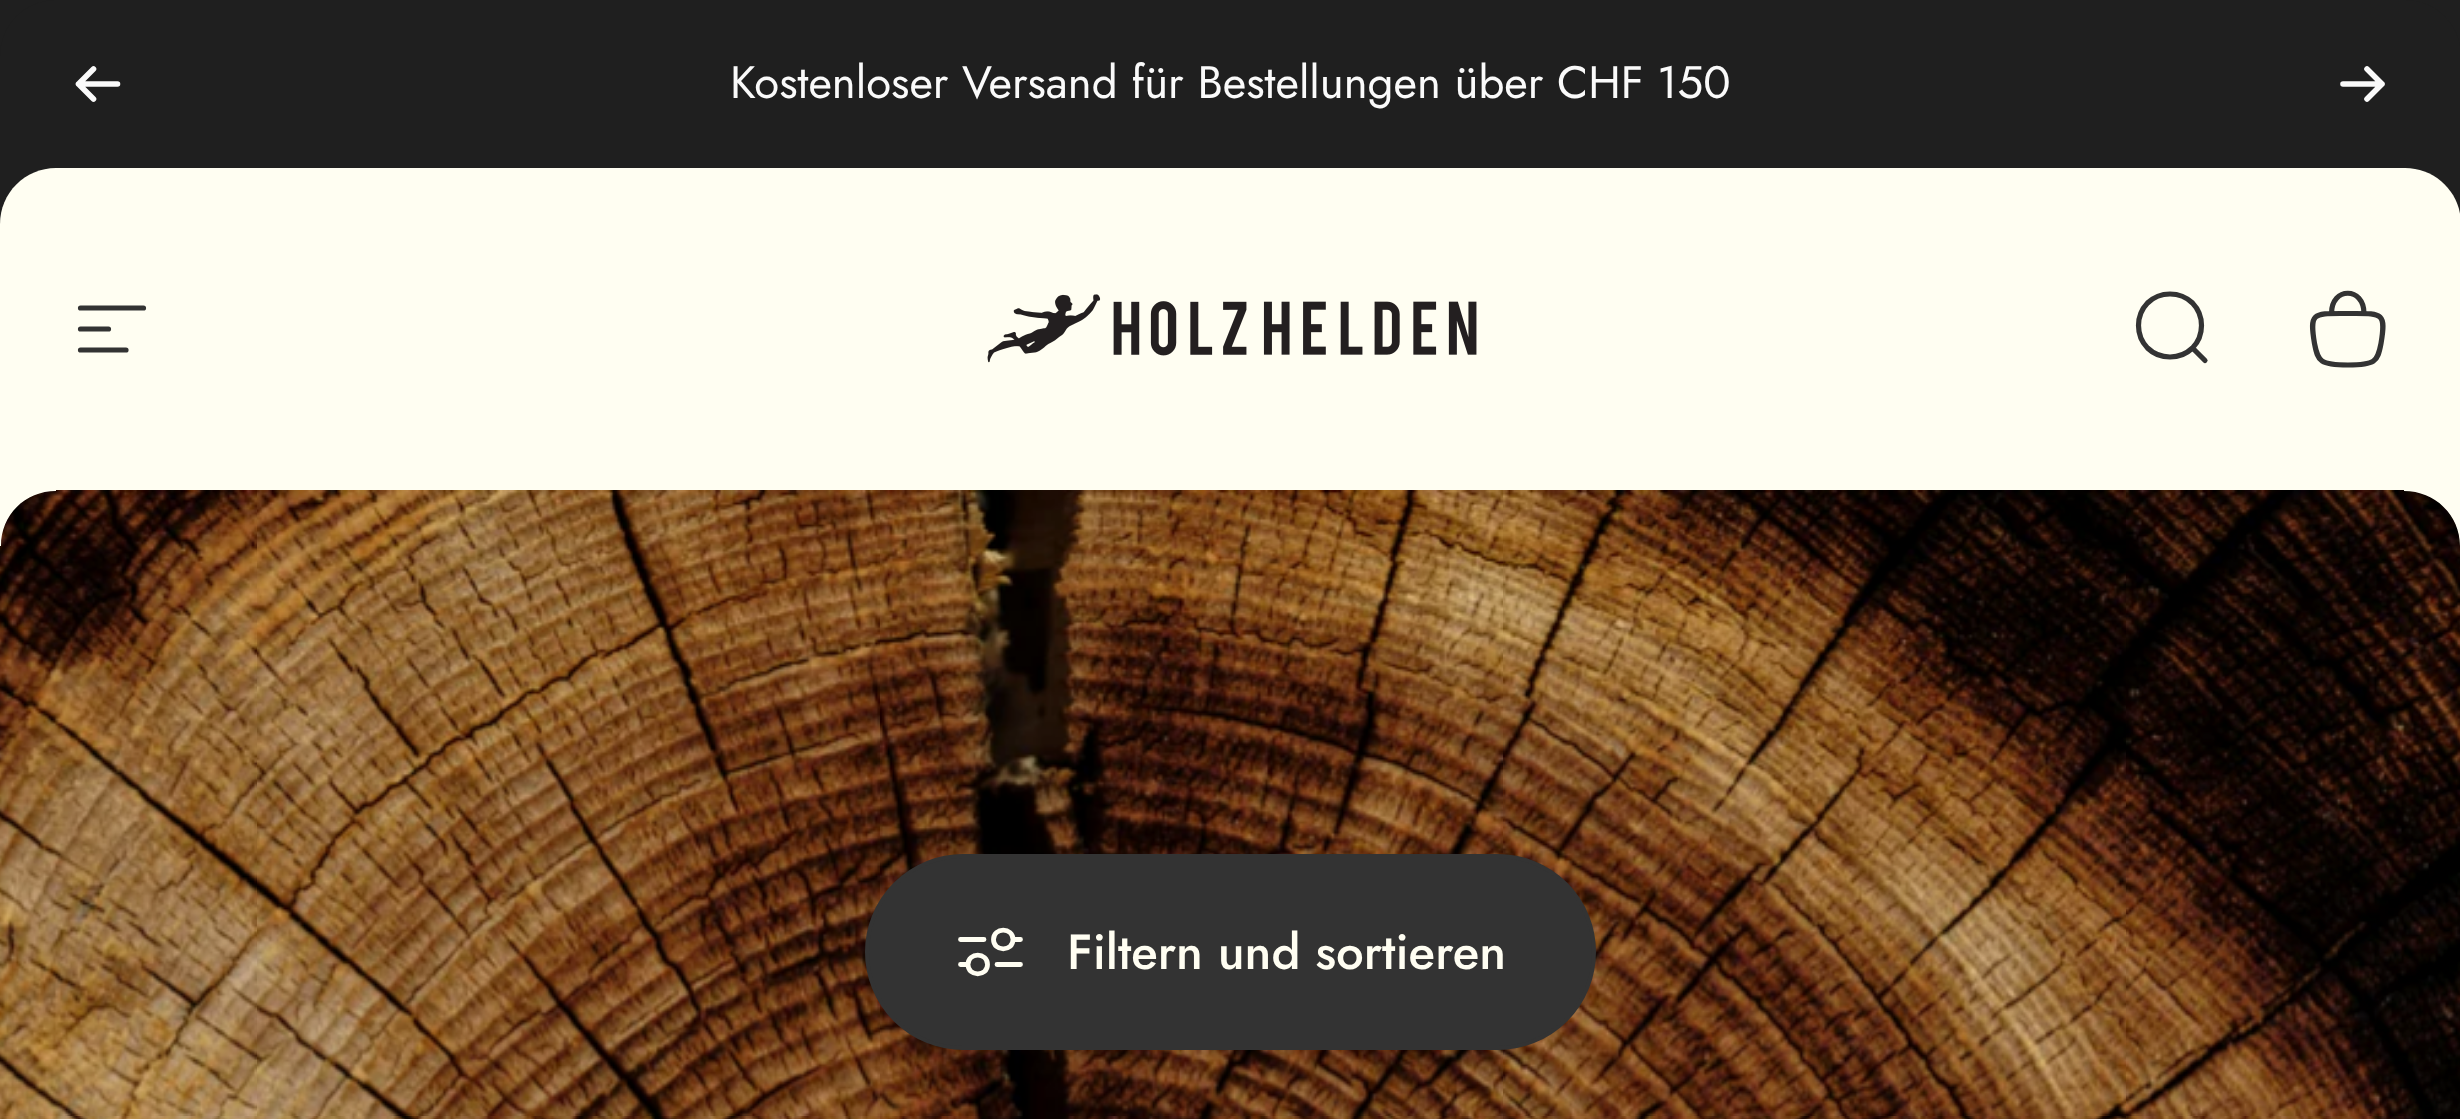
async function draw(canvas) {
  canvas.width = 2460;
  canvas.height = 1119;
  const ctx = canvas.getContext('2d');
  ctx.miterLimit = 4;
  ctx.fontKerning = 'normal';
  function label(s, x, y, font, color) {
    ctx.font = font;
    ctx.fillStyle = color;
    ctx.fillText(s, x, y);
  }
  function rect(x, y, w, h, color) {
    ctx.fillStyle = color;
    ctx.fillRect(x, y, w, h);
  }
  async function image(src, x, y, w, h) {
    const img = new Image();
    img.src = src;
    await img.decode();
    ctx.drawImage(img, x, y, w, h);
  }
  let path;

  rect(0, 0, 2460, 1119, '#fff');
  rect(0, 0, 2460, 56, '#1f1f1f');
  path = new Path2D('M56 0H2405C2436 0 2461 25 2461 56V224H0V56C0 25 25 0 56 0Z');
  ctx.fill(path);
  path = new Path2D('M93.5 69L78.5 84M78.5 84L93.5 99M78.5 84H117.5');
  ctx.strokeStyle = '#fafafa';
  ctx.lineWidth = 5.6;
  ctx.lineCap = 'round';
  ctx.lineJoin = 'round';
  ctx.stroke(path);
  label('Kostenloser Versand für Bestellungen über CHF 150', 730, 98, '45.5px Jost', '#fafafa');
  path = new Path2D('M2343 84H2382M2382 84L2367 69M2382 84L2367 99');
  ctx.stroke(path);
  ctx.fillStyle = '#fffef2';
  path = new Path2D('M56 168H2405C2436 168 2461 193 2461 224V490H0V224C0 193 25 168 56 168Z');
  ctx.fill(path);
  path = new Path2D('M80.5 308H143.5M80.5 329H108.5M80.5 350H126');
  ctx.strokeStyle = '#333';
  ctx.lineWidth = 5.2;
  ctx.lineJoin = 'miter';
  ctx.stroke(path);
  await image('assets/img1.png', 987, 294, 490, 69);
  path = new Path2D('M2205 360.5L2192.5 348M2192.5 348C2204.5 335.5 2204.5 315.5 2192.5 303C2180 291 2160 291 2147.5 303C2135.5 315.5 2135.5 335.5 2147.5 348C2160 360 2180 360 2192.5 348Z');
  ctx.stroke(path);
  path = new Path2D('M2331.5 313.5C2331.5 286.5 2364 286.5 2364 313.5M2348 313.5C2313.5 313.5 2309 311.5 2314.5 343.5C2318 362 2320.5 365 2348 365C2375 365 2377.5 362 2381 343.5C2386.5 311.5 2382 313.5 2348 313.5Z');
  ctx.lineCap = 'butt';
  ctx.stroke(path);
  await image('assets/img2.png', 0, 490, 2460, 629);
  rect(0, 490, 2460, 629, '#0000001a');
  ctx.fillStyle = '#fffef2';
  path = new Path2D('M56 490H0V546H1C1 515 25 491 56 491Z');
  ctx.fill(path, 'evenodd');
  path = new Path2D('M2404 490H2460V546C2460 515 2435 491 2404 491Z');
  ctx.fill(path, 'evenodd');
  ctx.fillStyle = '#333';
  ctx.beginPath();
  ctx.roundRect(867, 856, 727, 192, 96);
  ctx.fill();
  ctx.lineWidth = 4;
  ctx.stroke();
  path = new Path2D('M960.5 964.5H968M968 964.5C968 977 987.5 977 987.5 964.5C987.5 952 968 952 968 964.5ZM1013 939.5H1020.5M1013 939.5C1013 952 993.5 952 993.5 939.5C993.5 927 1013 927 1013 939.5ZM997 964.5H1020.5M960.5 939.5H984');
  ctx.strokeStyle = '#fffef2';
  ctx.lineWidth = 4.8;
  ctx.lineCap = 'round';
  ctx.stroke(path);
  label('Filtern und sortieren', 1067, 969, '500 49.25px Jost', '#fffef2');
}

draw(document.querySelector('canvas'));
